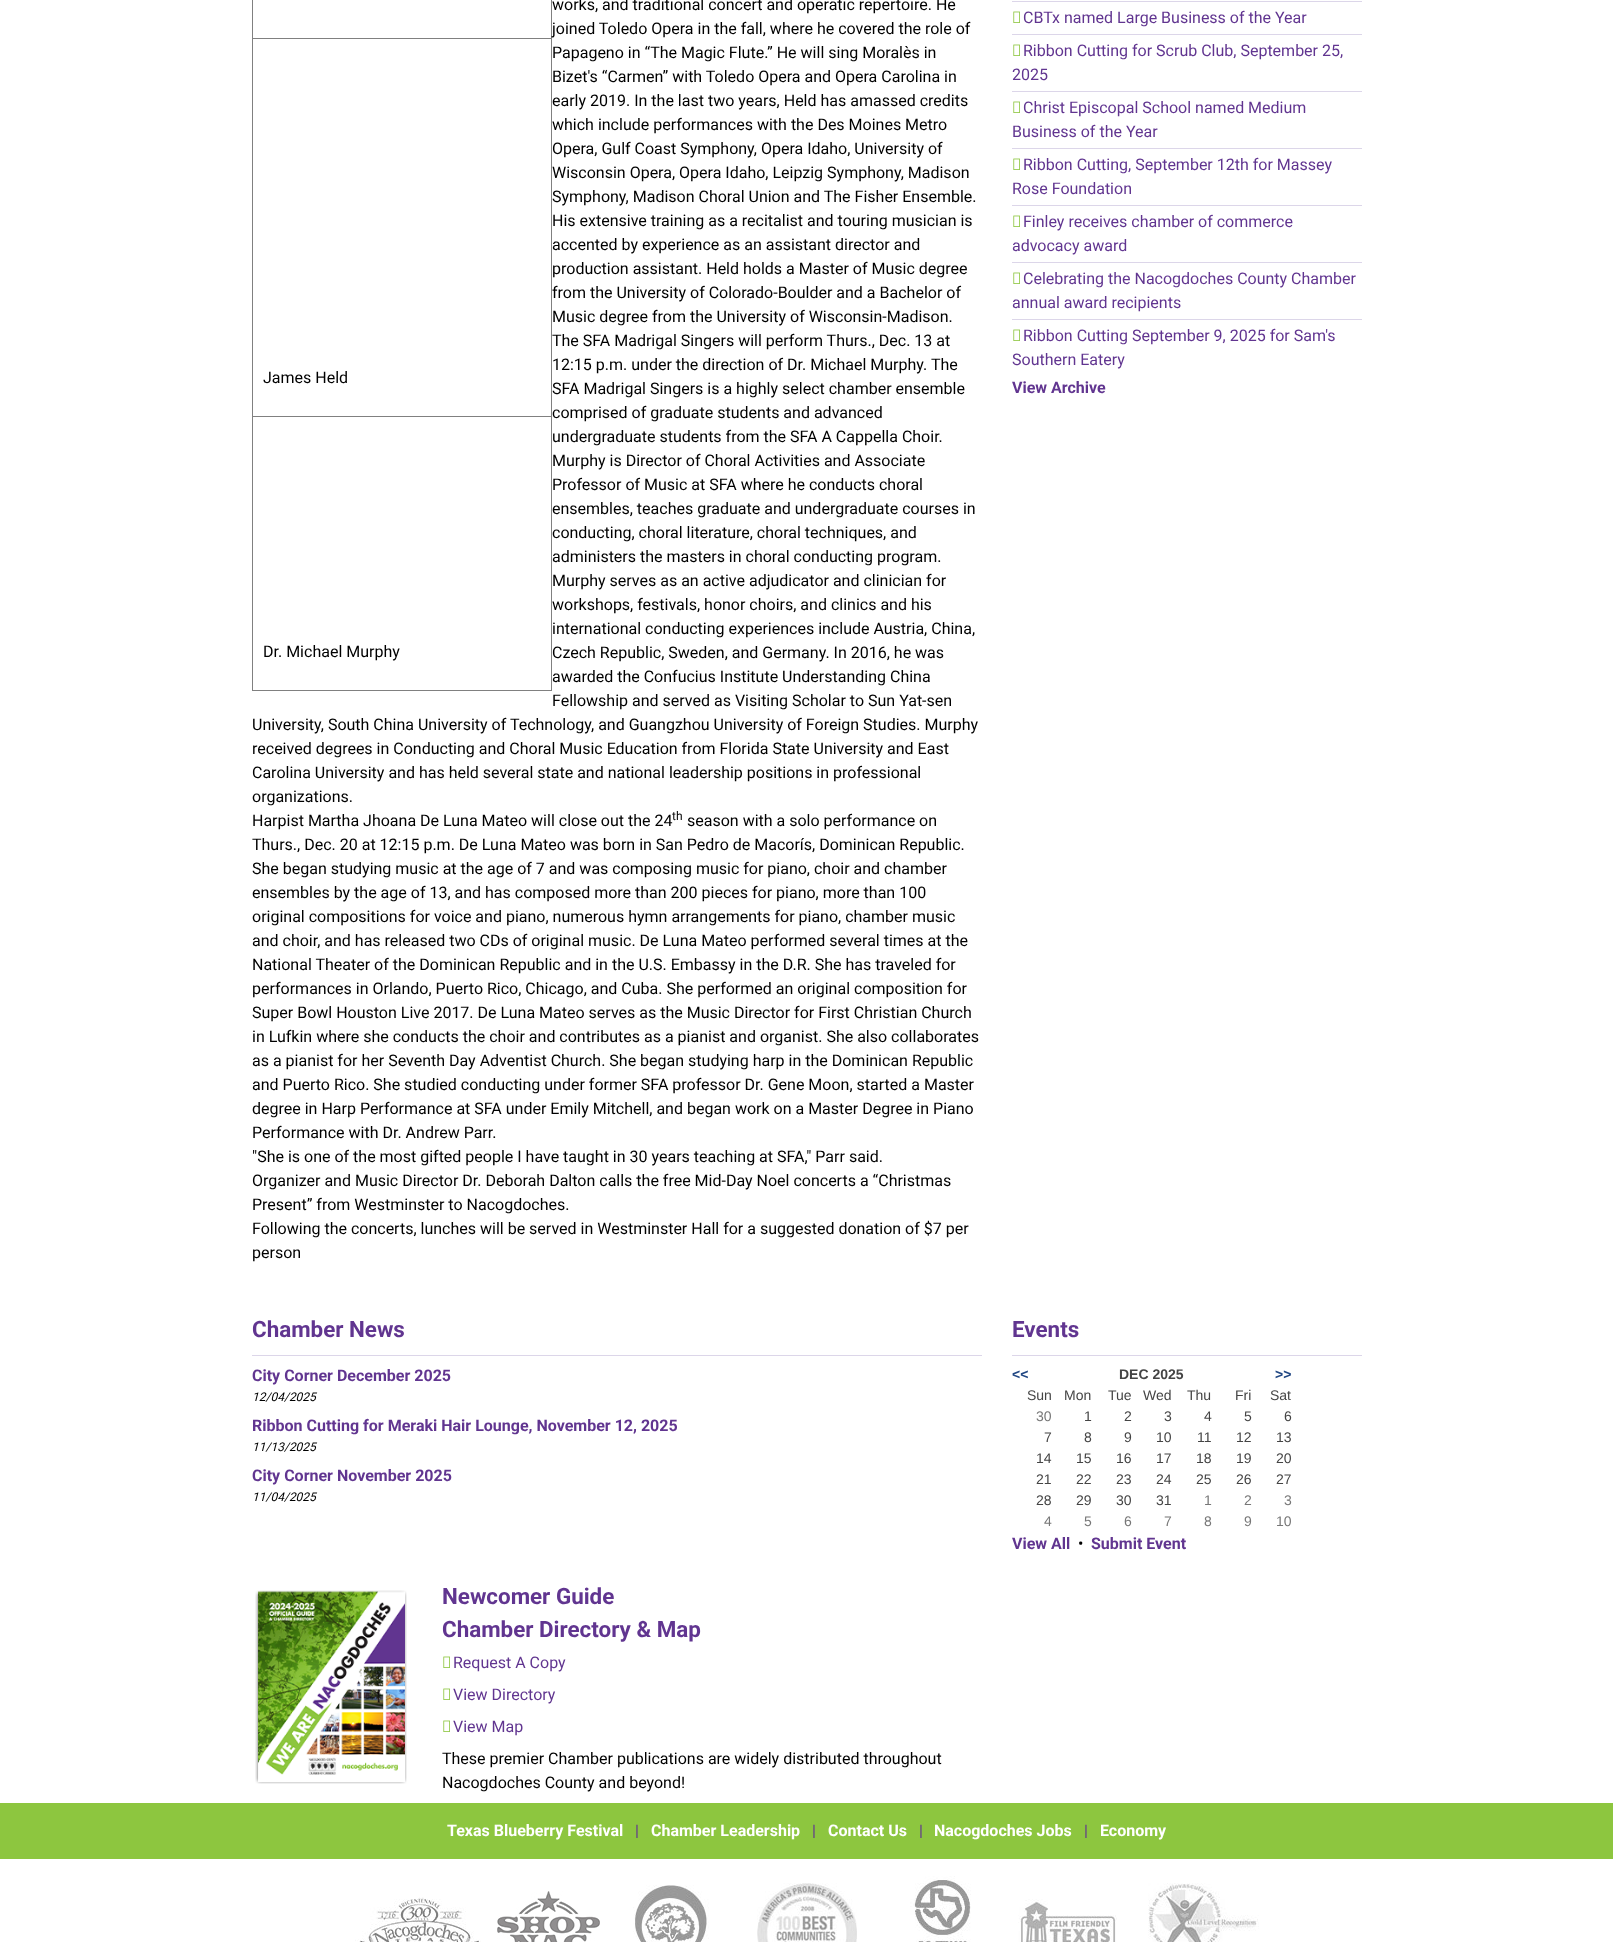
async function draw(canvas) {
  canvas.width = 1613;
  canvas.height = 1942;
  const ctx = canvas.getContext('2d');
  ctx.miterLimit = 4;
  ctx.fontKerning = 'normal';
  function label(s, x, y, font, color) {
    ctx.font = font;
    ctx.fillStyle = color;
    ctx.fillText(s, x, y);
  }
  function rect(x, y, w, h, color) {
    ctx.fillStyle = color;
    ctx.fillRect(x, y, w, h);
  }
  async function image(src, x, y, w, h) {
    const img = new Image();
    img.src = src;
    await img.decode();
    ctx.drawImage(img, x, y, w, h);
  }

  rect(0, 0, 1613, 1942, '#fff');
  rect(551, 0, 1, 691, '#808080');
  label('works, and traditional concert and operatic repertoire. He', 552, 10, '16px Roboto', '#000');
  label('joined Toledo Opera in the fall, where he covered the role of', 552, 34, '16px Roboto', '#000');
  label('Papageno in “The Magic Flute.” He will sing Moralès in', 552, 58, '16px Roboto', '#000');
  label('Bizet\'s “Carmen” with Toledo Opera and Opera Carolina in', 552, 82, '16px Roboto', '#000');
  label('early 2019. In the last two years, Held has amassed credits', 552, 106, '16px Roboto', '#000');
  label('which include performances with the Des Moines Metro', 552, 130, '16px Roboto', '#000');
  label('Opera, Gulf Coast Symphony, Opera Idaho, University of', 552, 154, '16px Roboto', '#000');
  label('Wisconsin Opera, Opera Idaho, Leipzig Symphony, Madison', 552, 178, '16px Roboto', '#000');
  label('Symphony, Madison Choral Union and The Fisher Ensemble.', 552, 202, '16px Roboto', '#000');
  label('His extensive training as a recitalist and touring musician is', 552, 226, '16px Roboto', '#000');
  label('accented by experience as an assistant director and', 552, 250, '16px Roboto', '#000');
  label('production assistant. Held holds a Master of Music degree', 552, 274, '16px Roboto', '#000');
  label('from the University of Colorado-Boulder and a Bachelor of', 552, 298, '16px Roboto', '#000');
  label('Music degree from the University of Wisconsin-Madison.', 552, 322, '16px Roboto', '#000');
  label('The SFA Madrigal Singers will perform Thurs., Dec. 13 at', 552, 346, '16px Roboto', '#000');
  label('12:15 p.m. under the direction of Dr. Michael Murphy. The', 552, 370, '16px Roboto', '#000');
  label('SFA Madrigal Singers is a highly select chamber ensemble', 552, 394, '16px Roboto', '#000');
  label('comprised of graduate students and advanced', 552, 418, '16px Roboto', '#000');
  label('undergraduate students from the SFA A Cappella Choir.', 552, 442, '16px Roboto', '#000');
  label('Murphy is Director of Choral Activities and Associate', 552, 466, '16px Roboto', '#000');
  label('Professor of Music at SFA where he conducts choral', 552, 490, '16px Roboto', '#000');
  label('ensembles, teaches graduate and undergraduate courses in', 552, 514, '16px Roboto', '#000');
  label('conducting, choral literature, choral techniques, and', 552, 538, '16px Roboto', '#000');
  label('administers the masters in choral conducting program.', 552, 562, '16px Roboto', '#000');
  label('Murphy serves as an active adjudicator and clinician for', 552, 586, '16px Roboto', '#000');
  label('workshops, festivals, honor choirs, and clinics and his', 552, 610, '16px Roboto', '#000');
  label('international conducting experiences include Austria, China,', 552, 634, '16px Roboto', '#000');
  label('Czech Republic, Sweden, and Germany. In 2016, he was', 552, 658, '16px Roboto', '#000');
  label('awarded the Confucius Institute Understanding China', 552, 682, '16px Roboto', '#000');
  label('Fellowship and served as Visiting Scholar to Sun Yat-sen', 552, 706, '16px Roboto', '#000');
  label('University, South China University of Technology, and Guangzhou University of Foreign Studies. Murphy', 252, 730, '16px Roboto', '#000');
  label('received degrees in Conducting and Choral Music Education from Florida State University and East', 252, 754, '16px Roboto', '#000');
  label('Carolina University and has held several state and national leadership positions in professional', 252, 778, '16px Roboto', '#000');
  label('organizations.', 252, 802, '16px Roboto', '#000');
  label('Harpist Martha Jhoana De Luna Mateo will close out the 24', 252, 826, '16px Roboto', '#000');
  label('th', 672, 820, '12px Roboto', '#000');
  label('season with a solo performance on', 687, 826, '16px Roboto', '#000');
  label('Thurs., Dec. 20 at 12:15 p.m. De Luna Mateo was born in San Pedro de Macorís, Dominican Republic.', 252, 850, '16px Roboto', '#000');
  label('She began studying music at the age of 7 and was composing music for piano, choir and chamber', 252, 874, '16px Roboto', '#000');
  label('ensembles by the age of 13, and has composed more than 200 pieces for piano, more than 100', 252, 898, '16px Roboto', '#000');
  label('original compositions for voice and piano, numerous hymn arrangements for piano, chamber music', 252, 922, '16px Roboto', '#000');
  label('and choir, and has released two CDs of original music. De Luna Mateo performed several times at the', 252, 946, '16px Roboto', '#000');
  label('National Theater of the Dominican Republic and in the U.S. Embassy in the D.R. She has traveled for', 252, 970, '16px Roboto', '#000');
  label('performances in Orlando, Puerto Rico, Chicago, and Cuba. She performed an original composition for', 252, 994, '16px Roboto', '#000');
  label('Super Bowl Houston Live 2017. De Luna Mateo serves as the Music Director for First Christian Church', 252, 1018, '16px Roboto', '#000');
  label('in Lufkin where she conducts the choir and contributes as a pianist and organist. She also collaborates', 252, 1042, '16px Roboto', '#000');
  label('as a pianist for her Seventh Day Adventist Church. She began studying harp in the Dominican Republic', 252, 1066, '16px Roboto', '#000');
  label('and Puerto Rico. She studied conducting under former SFA professor Dr. Gene Moon, started a Master', 252, 1090, '16px Roboto', '#000');
  label('degree in Harp Performance at SFA under Emily Mitchell, and began work on a Master Degree in Piano', 252, 1114, '16px Roboto', '#000');
  label('Performance with Dr. Andrew Parr.', 252, 1138, '16px Roboto', '#000');
  label('"She is one of the most gifted people I have taught in 30 years teaching at SFA," Parr said.', 252, 1162, '16px Roboto', '#000');
  label('Organizer and Music Director Dr. Deborah Dalton calls the free Mid-Day Noel concerts a “Christmas', 252, 1186, '16px Roboto', '#000');
  label('Present” from Westminster to Nacogdoches.', 252, 1210, '16px Roboto', '#000');
  label('Following the concerts, lunches will be served in Westminster Hall for a suggested donation of $7 per', 252, 1234, '16px Roboto', '#000');
  label('person', 252, 1258, '16px Roboto', '#000');
  rect(252, 690, 300, 1, '#808080');
  rect(252, 0, 1, 691, '#808080');
  rect(252, 38, 300, 1, '#808080');
  label('James Held', 263, 383, '16px Roboto', '#000');
  rect(252, 416, 300, 1, '#808080');
  label('Dr. Michael Murphy', 263, 657, '16px Roboto', '#000');
  rect(1012, 1, 350, 1, '#dcd6e9');
  await image('assets/img1.png', 1013, 11, 7, 12);
  label('CBTx named Large Business of the Year', 1023, 23, '16px Roboto', '#613590');
  rect(1012, 34, 350, 1, '#dcd6e9');
  await image('assets/img1.png', 1013, 44, 7, 12);
  label('Ribbon Cutting for Scrub Club, September 25,', 1023, 56, '16px Roboto', '#613590');
  label('2025', 1012, 80, '16px Roboto', '#613590');
  rect(1012, 91, 350, 1, '#dcd6e9');
  await image('assets/img1.png', 1013, 101, 7, 12);
  label('Christ Episcopal School named Medium', 1023, 113, '16px Roboto', '#613590');
  label('Business of the Year', 1012, 137, '16px Roboto', '#613590');
  rect(1012, 148, 350, 1, '#dcd6e9');
  await image('assets/img1.png', 1013, 158, 7, 12);
  label('Ribbon Cutting, September 12th for Massey', 1023, 170, '16px Roboto', '#613590');
  label('Rose Foundation', 1012, 194, '16px Roboto', '#613590');
  rect(1012, 205, 350, 1, '#dcd6e9');
  await image('assets/img1.png', 1013, 215, 7, 12);
  label('Finley receives chamber of commerce', 1023, 227, '16px Roboto', '#613590');
  label('advocacy award', 1012, 251, '16px Roboto', '#613590');
  rect(1012, 262, 350, 1, '#dcd6e9');
  await image('assets/img1.png', 1013, 272, 7, 12);
  label('Celebrating the Nacogdoches County Chamber', 1023, 284, '16px Roboto', '#613590');
  label('annual award recipients', 1012, 308, '16px Roboto', '#613590');
  rect(1012, 319, 350, 1, '#dcd6e9');
  await image('assets/img1.png', 1013, 329, 7, 12);
  label('Ribbon Cutting September 9, 2025 for Sam\'s', 1023, 341, '16px Roboto', '#613590');
  label('Southern Eatery', 1012, 365, '16px Roboto', '#613590');
  label('View Archive', 1012, 393, 'bold 16px Roboto', '#613590');
  rect(252, 1355, 730, 1, '#dcd6e9');
  label('Chamber News', 252, 1337, 'bold 22.4px Roboto', '#613590');
  label('City Corner December 2025', 252, 1381, 'bold 16px Roboto', '#613590');
  label('12/04/2025', 252, 1401, 'italic 12px Roboto', '#000');
  label('Ribbon Cutting for Meraki Hair Lounge, November 12, 2025', 252, 1431, 'bold 16px Roboto', '#613590');
  label('11/13/2025', 252, 1451, 'italic 12px Roboto', '#000');
  label('City Corner November 2025', 252, 1481, 'bold 16px Roboto', '#613590');
  label('11/04/2025', 252, 1501, 'italic 12px Roboto', '#000');
  rect(1012, 1355, 350, 1, '#dcd6e9');
  label('Events', 1012, 1337, 'bold 22.4px Roboto', '#613590');
  label('<<', 1012, 1379, 'bold 14px Liberation Sans', '#224884');
  label('DEC 2025', 1119, 1379, 'bold 14px Liberation Sans', '#444');
  label('>>', 1275, 1379, 'bold 14px Liberation Sans', '#224884');
  label('Sun', 1027, 1400, '14px Liberation Sans', '#444');
  label('Mon', 1064, 1400, '14px Liberation Sans', '#444');
  label('Tue', 1108, 1400, '14px Liberation Sans', '#444');
  label('Wed', 1143, 1400, '14px Liberation Sans', '#444');
  label('Thu', 1187, 1400, '14px Liberation Sans', '#444');
  label('Fri', 1235, 1400, '14px Liberation Sans', '#444');
  label('Sat', 1270, 1400, '14px Liberation Sans', '#444');
  label('30', 1036, 1421, '14px Liberation Sans', '#777');
  label('1', 1084, 1421, '14px Liberation Sans', '#444');
  label('2', 1124, 1421, '14px Liberation Sans', '#444');
  label('3', 1164, 1421, '14px Liberation Sans', '#444');
  label('4', 1204, 1421, '14px Liberation Sans', '#444');
  label('5', 1244, 1421, '14px Liberation Sans', '#444');
  label('6', 1284, 1421, '14px Liberation Sans', '#444');
  label('7', 1044, 1442, '14px Liberation Sans', '#444');
  label('8', 1084, 1442, '14px Liberation Sans', '#444');
  label('9', 1124, 1442, '14px Liberation Sans', '#444');
  label('10', 1156, 1442, '14px Liberation Sans', '#444');
  label('11', 1197, 1442, '14px Liberation Sans', '#444');
  label('12', 1236, 1442, '14px Liberation Sans', '#444');
  label('13', 1276, 1442, '14px Liberation Sans', '#444');
  label('14', 1036, 1463, '14px Liberation Sans', '#444');
  label('15', 1076, 1463, '14px Liberation Sans', '#444');
  label('16', 1116, 1463, '14px Liberation Sans', '#444');
  label('17', 1156, 1463, '14px Liberation Sans', '#444');
  label('18', 1196, 1463, '14px Liberation Sans', '#444');
  label('19', 1236, 1463, '14px Liberation Sans', '#444');
  label('20', 1276, 1463, '14px Liberation Sans', '#444');
  label('21', 1036, 1484, '14px Liberation Sans', '#444');
  label('22', 1076, 1484, '14px Liberation Sans', '#444');
  label('23', 1116, 1484, '14px Liberation Sans', '#444');
  label('24', 1156, 1484, '14px Liberation Sans', '#444');
  label('25', 1196, 1484, '14px Liberation Sans', '#444');
  label('26', 1236, 1484, '14px Liberation Sans', '#444');
  label('27', 1276, 1484, '14px Liberation Sans', '#444');
  label('28', 1036, 1505, '14px Liberation Sans', '#444');
  label('29', 1076, 1505, '14px Liberation Sans', '#444');
  label('30', 1116, 1505, '14px Liberation Sans', '#444');
  label('31', 1156, 1505, '14px Liberation Sans', '#444');
  label('1', 1204, 1505, '14px Liberation Sans', '#777');
  label('2', 1244, 1505, '14px Liberation Sans', '#777');
  label('3', 1284, 1505, '14px Liberation Sans', '#777');
  label('4', 1044, 1526, '14px Liberation Sans', '#777');
  label('5', 1084, 1526, '14px Liberation Sans', '#777');
  label('6', 1124, 1526, '14px Liberation Sans', '#777');
  label('7', 1164, 1526, '14px Liberation Sans', '#777');
  label('8', 1204, 1526, '14px Liberation Sans', '#777');
  label('9', 1244, 1526, '14px Liberation Sans', '#777');
  label('10', 1276, 1526, '14px Liberation Sans', '#777');
  label('View All', 1012, 1549, 'bold 16px Roboto', '#613590');
  label('•', 1078, 1549, '16px Roboto', '#000');
  label('Submit Event', 1091, 1549, 'bold 16px Roboto', '#613590');
  await image('assets/img2.png', 255, 1590, 152, 194);
  label('Newcomer Guide', 442, 1604, 'bold 22.4px Roboto', '#613590');
  label('Chamber Directory & Map', 442, 1637, 'bold 22.4px Roboto', '#613590');
  await image('assets/img1.png', 443, 1656, 7, 12);
  label('Request A Copy', 453, 1668, '16px Roboto', '#613590');
  await image('assets/img1.png', 443, 1688, 7, 12);
  label('View Directory', 453, 1700, '16px Roboto', '#613590');
  await image('assets/img1.png', 443, 1720, 7, 12);
  label('View Map', 453, 1732, '16px Roboto', '#613590');
  label('These premier Chamber publications are widely distributed throughout', 442, 1764, '16px Roboto', '#000');
  label('Nacogdoches County and beyond!', 442, 1788, '16px Roboto', '#000');
  rect(0, 1803, 1613, 56, '#8dc63f');
  label('Texas Blueberry Festival', 447, 1836, 'bold 16px Roboto', '#fff');
  label('|', 635, 1836, '16px Roboto', '#613590');
  label('Chamber Leadership', 651, 1836, 'bold 16px Roboto', '#fff');
  label('|', 812, 1836, '16px Roboto', '#613590');
  label('Contact Us', 828, 1836, 'bold 16px Roboto', '#fff');
  label('|', 919, 1836, '16px Roboto', '#613590');
  label('Nacogdoches Jobs', 934, 1836, 'bold 16px Roboto', '#fff');
  label('|', 1084, 1836, '16px Roboto', '#613590');
  label('Economy', 1100, 1836, 'bold 16px Roboto', '#fff');
  await image('assets/img3.png', 355, 1897, 126, 45);
  await image('assets/img4.png', 497, 1891, 103, 51);
  await image('assets/img5.png', 633, 1885, 76, 57);
  await image('assets/img6.png', 757, 1883, 100, 59);
  await image('assets/img7.png', 910, 1876, 61, 66);
  await image('assets/img8.png', 1018, 1899, 99, 43);
  await image('assets/img9.png', 1148, 1883, 111, 59);
}

draw(document.querySelector('canvas'));
